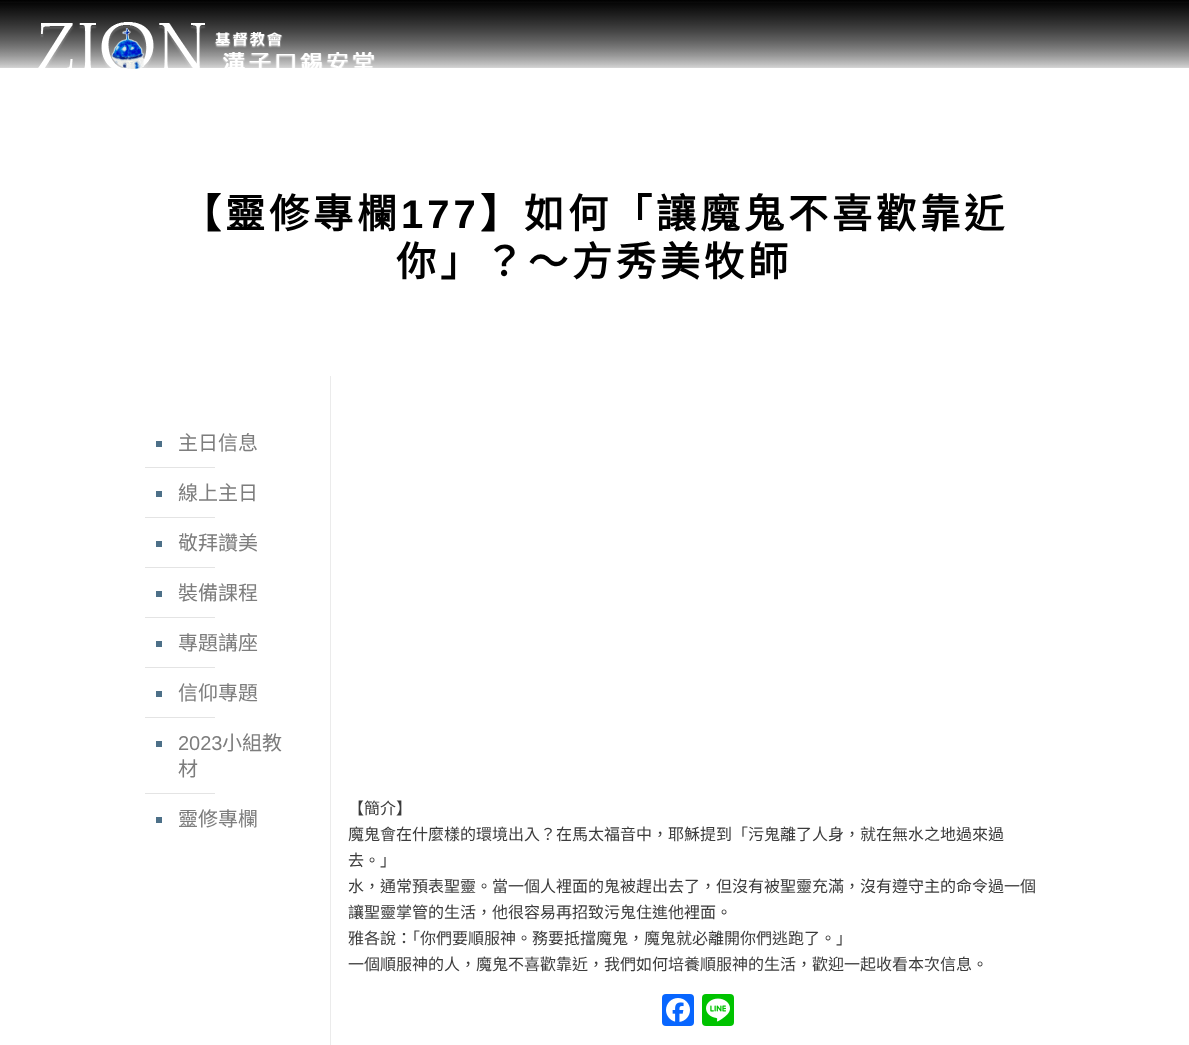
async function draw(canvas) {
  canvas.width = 1189;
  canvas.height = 1045;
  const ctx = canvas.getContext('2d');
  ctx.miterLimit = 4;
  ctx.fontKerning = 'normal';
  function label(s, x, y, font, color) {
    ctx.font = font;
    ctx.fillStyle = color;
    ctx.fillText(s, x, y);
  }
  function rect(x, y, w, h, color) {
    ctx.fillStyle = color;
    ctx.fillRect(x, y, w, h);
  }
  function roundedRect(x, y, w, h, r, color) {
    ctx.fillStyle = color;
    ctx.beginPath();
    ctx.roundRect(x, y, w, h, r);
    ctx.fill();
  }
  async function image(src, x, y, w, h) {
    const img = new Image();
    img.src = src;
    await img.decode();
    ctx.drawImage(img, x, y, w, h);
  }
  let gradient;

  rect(0, 0, 1189, 1045, '#fff');
  gradient = ctx.createLinearGradient(595, 0, 595, 68);
  gradient.addColorStop(0, '#000');
  gradient.addColorStop(1, '#fff');
  ctx.fillStyle = gradient;
  ctx.fillRect(0, 0, 1189, 67);
  await image('assets/img1.png', 0, 3, 1189, 65);
  await image('assets/img2.png', 38, 22, 337, 47);
  ctx.letterSpacing = '4px';
  label('【靈修專欄', 181, 228, 'bold 40px Noto Sans CJK TC', '#000');
  label('177', 401, 228, 'bold 40px Liberation Sans', '#000');
  label('】如何「讓魔鬼不喜歡靠近', 480, 228, 'bold 40px Noto Sans CJK TC', '#000');
  label('你」？～方秀美牧師', 396, 276, 'bold 40px Noto Sans CJK TC', '#000');
  rect(330, 376, 1, 669, '#ebebeb');
  rect(156, 441, 6, 6, '#4d7088');
  ctx.letterSpacing = '0px';
  label('主日信息', 178, 450, '20px Noto Sans CJK TC', '#7d7d7d');
  rect(145, 467, 70, 1, '#e4e4e4');
  rect(156, 491, 6, 6, '#4d7088');
  label('線上主日', 178, 500, '20px Noto Sans CJK TC', '#7d7d7d');
  rect(145, 517, 70, 1, '#e4e4e4');
  rect(156, 541, 6, 6, '#4d7088');
  label('敬拜讚美', 178, 550, '20px Noto Sans CJK TC', '#7d7d7d');
  rect(145, 567, 70, 1, '#e4e4e4');
  rect(156, 591, 6, 6, '#4d7088');
  label('裝備課程', 178, 600, '20px Noto Sans CJK TC', '#7d7d7d');
  rect(145, 617, 70, 1, '#e4e4e4');
  rect(156, 641, 6, 6, '#4d7088');
  label('專題講座', 178, 650, '20px Noto Sans CJK TC', '#7d7d7d');
  rect(145, 667, 70, 1, '#e4e4e4');
  rect(156, 691, 6, 6, '#4d7088');
  label('信仰專題', 178, 700, '20px Noto Sans CJK TC', '#7d7d7d');
  rect(145, 717, 70, 1, '#e4e4e4');
  rect(156, 741, 6, 6, '#4d7088');
  label('2023', 178, 750, '20px Liberation Sans', '#7d7d7d');
  label('小組教', 222, 750, '20px Noto Sans CJK TC', '#7d7d7d');
  label('材', 178, 776, '20px Noto Sans CJK TC', '#7d7d7d');
  rect(145, 793, 70, 1, '#e4e4e4');
  rect(156, 817, 6, 6, '#4d7088');
  label('靈修專欄', 178, 826, '20px Noto Sans CJK TC', '#7d7d7d');
  label('【簡介】', 348, 814, '16px Noto Sans CJK TC', '#3b3b3b');
  label('魔鬼會在什麼樣的環境出入？在馬太福音中，耶穌提到「污鬼離了人身，就在無水之地過來過', 348, 840, '16px Noto Sans CJK TC', '#3b3b3b');
  label('去。」', 348, 866, '16px Noto Sans CJK TC', '#3b3b3b');
  label('水，通常預表聖靈。當一個人裡面的鬼被趕出去了，但沒有被聖靈充滿，沒有遵守主的命令過一個', 348, 892, '16px Noto Sans CJK TC', '#3b3b3b');
  label('讓聖靈掌管的生活，他很容易再招致污鬼住進他裡面。', 348, 918, '16px Noto Sans CJK TC', '#3b3b3b');
  label('雅各說：「你們要順服神。務要抵擋魔鬼，魔鬼就必離開你們逃跑了。」', 348, 944, '16px Noto Sans CJK TC', '#3b3b3b');
  label('一個順服神的人，魔鬼不喜歡靠近，我們如何培養順服神的生活，歡迎一起收看本次信息。', 348, 970, '16px Noto Sans CJK TC', '#3b3b3b');
  roundedRect(662, 994, 32, 32, 4, '#0866ff');
  await image('assets/img3.png', 666, 998, 24, 24);
  roundedRect(702, 994, 32, 32, 4, '#00c300');
  await image('assets/img4.png', 706, 998, 24, 24);
}

draw(document.querySelector('canvas'));
